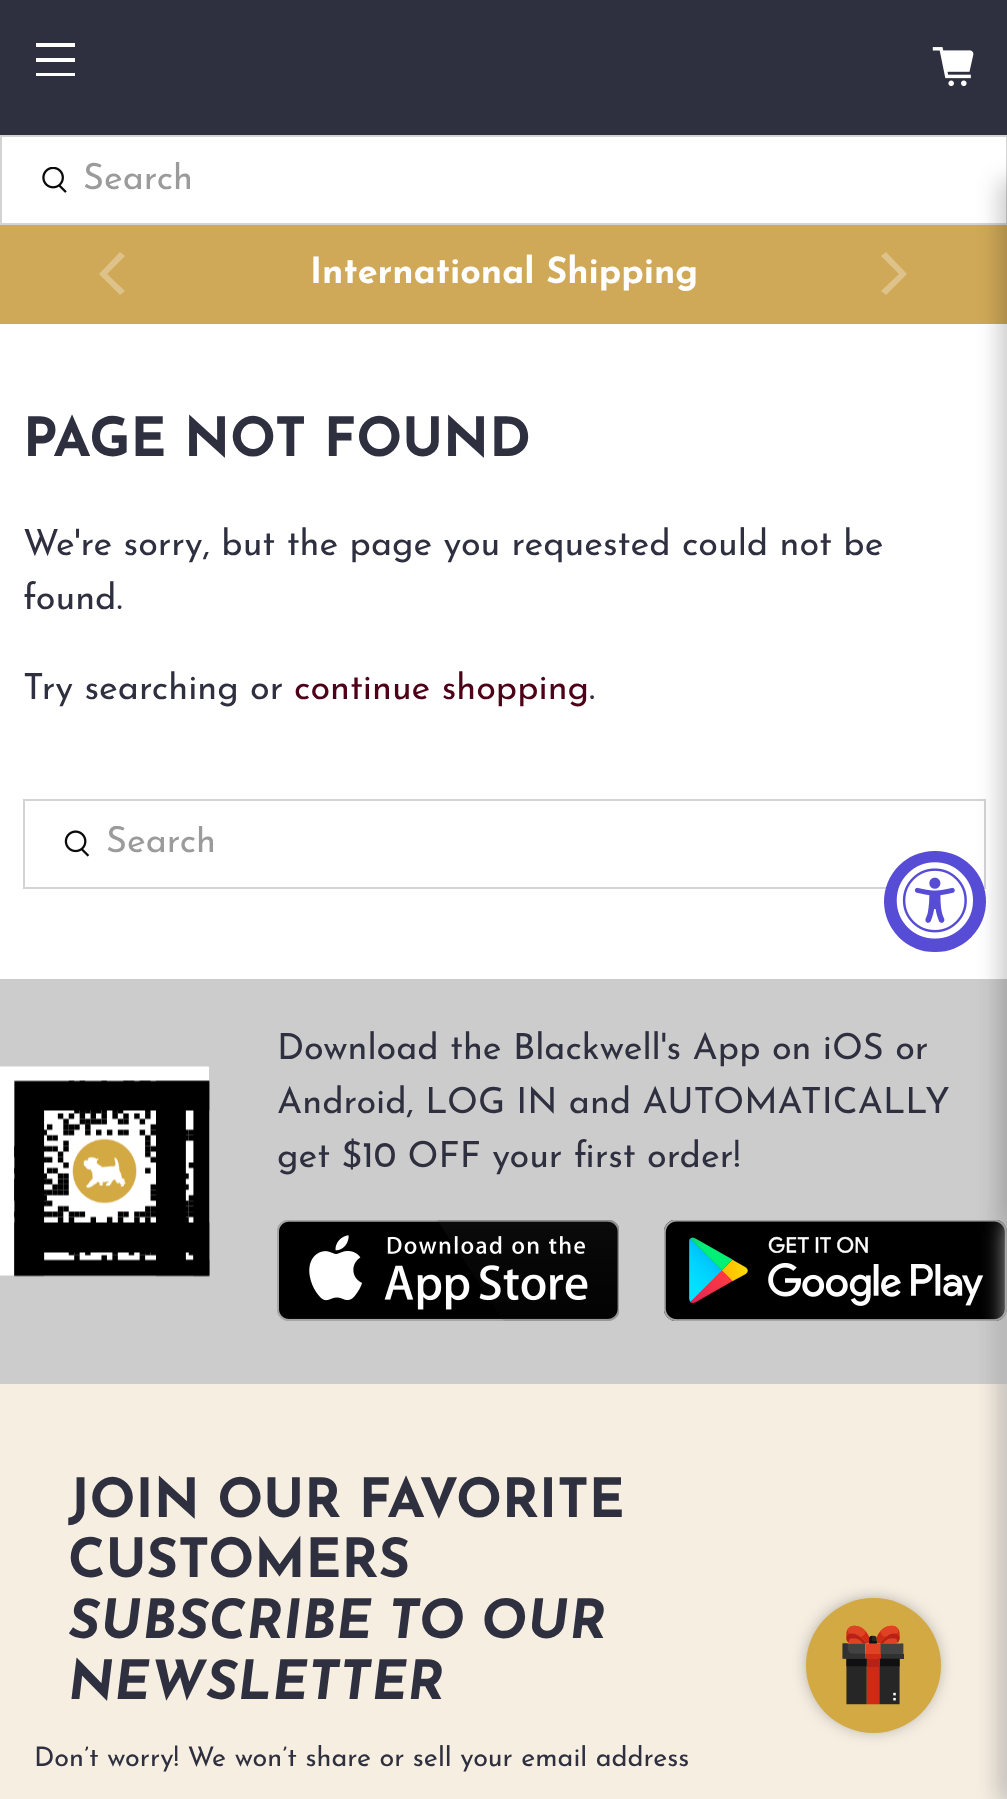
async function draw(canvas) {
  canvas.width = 1007;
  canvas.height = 1799;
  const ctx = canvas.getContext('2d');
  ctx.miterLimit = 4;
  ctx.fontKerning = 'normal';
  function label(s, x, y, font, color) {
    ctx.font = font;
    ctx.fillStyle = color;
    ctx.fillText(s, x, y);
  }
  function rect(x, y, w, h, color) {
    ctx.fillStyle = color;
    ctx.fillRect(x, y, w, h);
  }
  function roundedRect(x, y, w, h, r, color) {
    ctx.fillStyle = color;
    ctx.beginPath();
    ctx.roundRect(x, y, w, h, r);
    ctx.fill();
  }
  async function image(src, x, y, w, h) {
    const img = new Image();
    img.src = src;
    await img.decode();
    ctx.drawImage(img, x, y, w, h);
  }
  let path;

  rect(0, 0, 1007, 1799, '#fff');
  rect(0, 0, 1007, 135, '#2e2f3f');
  rect(36, 43, 39, 4, '#fff');
  rect(36, 58, 39, 4, '#fff');
  rect(36, 73, 39, 3, '#fff');
  await image('assets/img1.png', 932, 47, 42, 40);
  ctx.strokeStyle = '#d3d3d3';
  ctx.lineWidth = 2;
  ctx.strokeRect(1, 136, 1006, 88);
  await image('assets/img2.png', 42, 167, 25, 26);
  ctx.save();
  ctx.beginPath();
  ctx.rect(83, 162, 903, 36);
  ctx.clip();
  label('Search', 83, 189, '36px Josefin Sans', '#9b9b9b');
  ctx.restore();
  rect(0, 225, 1007, 99, '#cfa958');
  ctx.strokeRect(24, 800, 961, 88);
  rect(0, 979, 1007, 405, '#ccc');
  await image('assets/img7.png', 664, 1220, 343, 101);
  rect(0, 1384, 1007, 415, '#f6eee1');
  ctx.fillStyle = '#00000033';
  ctx.filter = 'blur(11px)';
  ctx.beginPath();
  ctx.rect(999, 180, 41, 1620);
  ctx.fill();
  ctx.filter = 'none';
  ctx.fillStyle = '#ccc';
  ctx.filter = 'blur(12.5px)';
  ctx.beginPath();
  ctx.rect(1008, 1220, 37, 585);
  ctx.fill();
  ctx.filter = 'none';
  ctx.fillStyle = '#ddc38a';
  path = new Path2D('M99 274L120 295L125 291L107 274L125 256L120 252Z');
  ctx.fill(path);
  label('International Shipping', 310, 283, 'bold 36px Josefin Sans', '#fff');
  ctx.fillStyle = '#ddc38a';
  path = new Path2D('M907 274L886 252L881 256L899 274L881 291L886 295Z');
  ctx.fill(path);
  label('PAGE NOT FOUND', 23, 456, 'bold 54px Josefin Sans', '#2e2f3f');
  label('We\'re sorry, but the page you requested could not be', 23, 555, '36px Josefin Sans', '#2e2f3f');
  label('found.', 23, 609, '36px Josefin Sans', '#2e2f3f');
  label('Try searching or', 23, 699, '36px Josefin Sans', '#2e2f3f');
  label('continue shopping', 294, 699, '36px Josefin Sans', '#4d0017');
  label('.', 589, 699, '36px Josefin Sans', '#2e2f3f');
  await image('assets/img3.png', 64, 830, 26, 27);
  ctx.save();
  ctx.beginPath();
  ctx.rect(106, 826, 857, 36);
  ctx.clip();
  label('Search', 106, 852, '36px Josefin Sans', '#9b9b9b');
  ctx.restore();
  roundedRect(884, 851, 102, 101, 50.5, '#574cd5');
  await image('assets/img4.png', 896, 862, 77, 77);
  await image('assets/img5.png', 0, 1066, 210, 211);
  label('Download the Blackwell\'s App on iOS or', 277, 1059, '36px Josefin Sans', '#2e2f3f');
  label('Android, LOG IN and AUTOMATICALLY', 277, 1113, '36px Josefin Sans', '#2e2f3f');
  label('get $10 OFF your first order!', 277, 1167, '36px Josefin Sans', '#2e2f3f');
  await image('assets/img6.png', 277, 1220, 342, 101);
  label('JOIN OUR FAVORITE', 68, 1517, 'bold 54px Josefin Sans', '#2e2f3f');
  label('CUSTOMERS', 68, 1577, 'bold 54px Josefin Sans', '#2e2f3f');
  label('SUBSCRIBE TO OUR', 68, 1638, 'italic bold 54px Josefin Sans', '#2e2f3f');
  label('NEWSLETTER', 68, 1699, 'italic bold 54px Josefin Sans', '#2e2f3f');
  label('Don’t worry! We won’t share or sell your email address', 34, 1766, '27px Josefin Sans', '#2e2f3f');
  ctx.fillStyle = '#000';
  ctx.filter = 'blur(11px)';
  ctx.beginPath();
  ctx.roundRect(817, 1609, 112, 112, 56);
  ctx.fill();
  ctx.filter = 'none';
  ctx.fillStyle = '#d3a943';
  ctx.beginPath();
  ctx.arc(873.5, 1665.5, 67.5, 0, 2 * Math.PI);
  ctx.fill();
  await image('assets/img8.png', 842, 1625, 62, 80);
}

draw(document.querySelector('canvas'));
